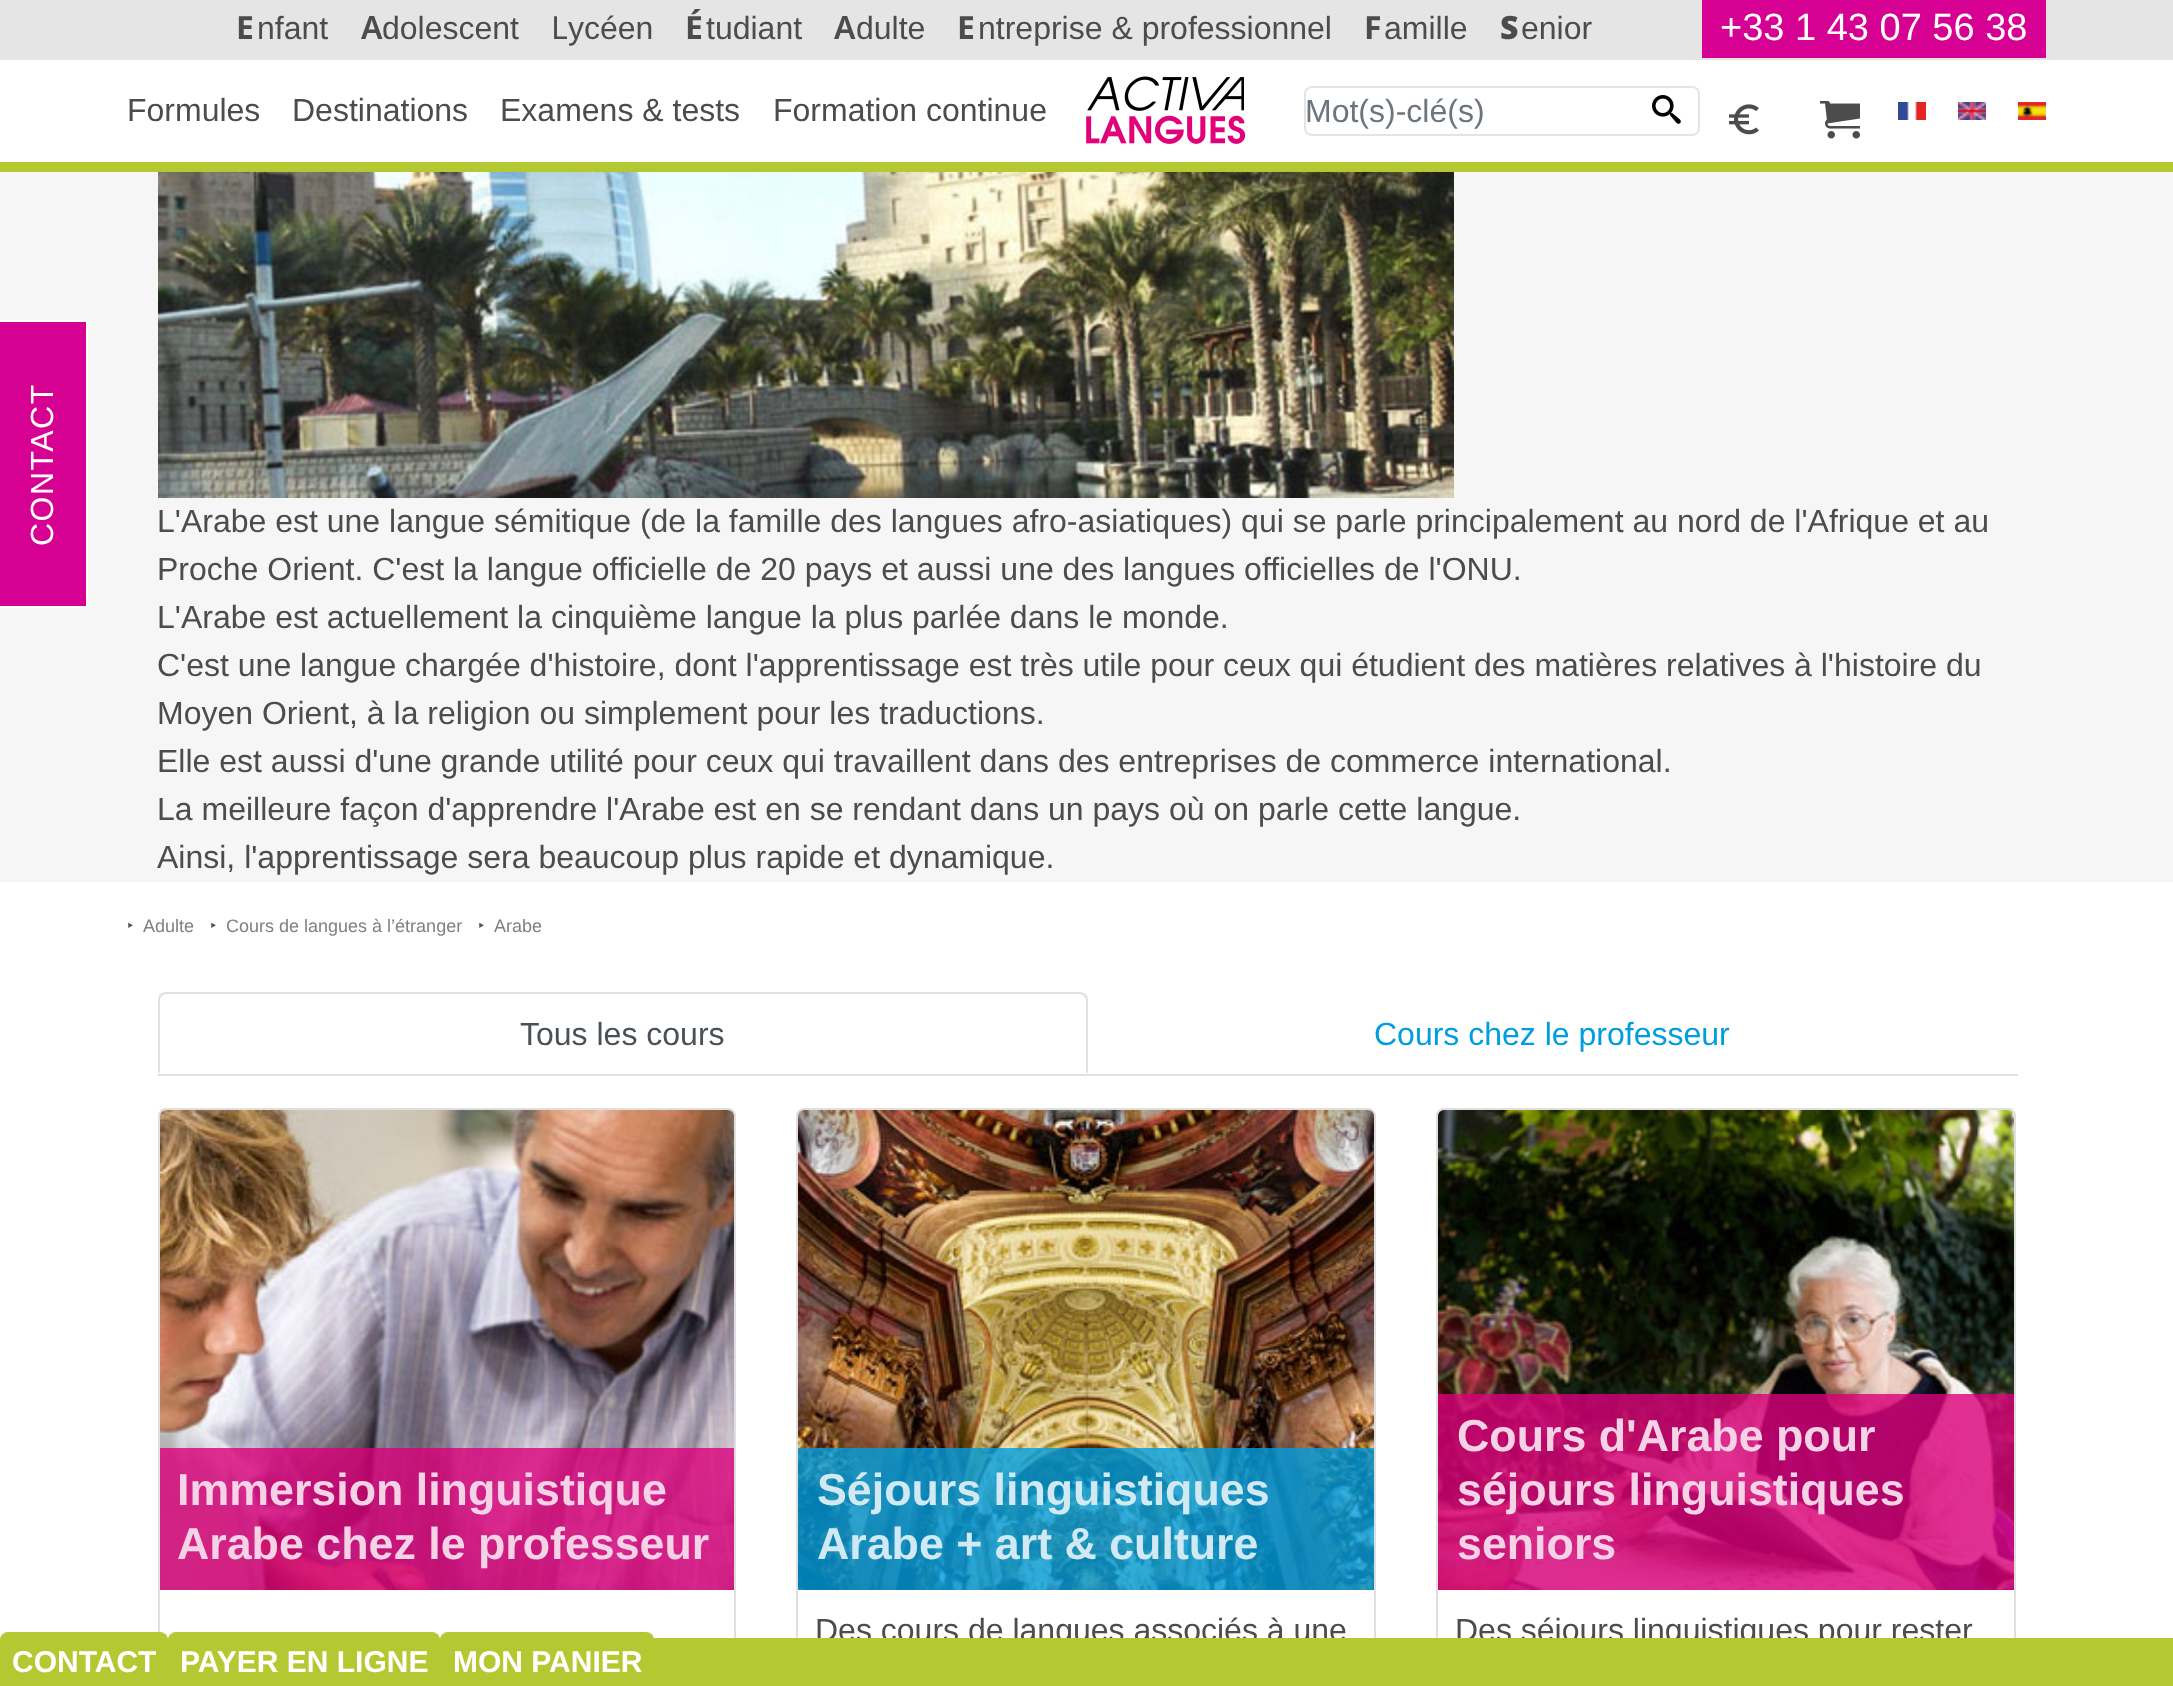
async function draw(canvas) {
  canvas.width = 2173;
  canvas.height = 1686;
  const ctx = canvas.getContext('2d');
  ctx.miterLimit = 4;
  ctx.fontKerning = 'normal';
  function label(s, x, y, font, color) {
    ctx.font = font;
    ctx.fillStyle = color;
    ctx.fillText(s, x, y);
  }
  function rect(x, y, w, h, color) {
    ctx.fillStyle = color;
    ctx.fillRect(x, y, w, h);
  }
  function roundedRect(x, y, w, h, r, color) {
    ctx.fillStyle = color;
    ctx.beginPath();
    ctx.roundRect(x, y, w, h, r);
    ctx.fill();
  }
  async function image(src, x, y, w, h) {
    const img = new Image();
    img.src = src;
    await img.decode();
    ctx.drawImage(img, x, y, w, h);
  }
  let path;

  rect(0, 0, 2173, 1686, '#fff');
  rect(0, 0, 2173, 60, '#e5e5e5');
  label('E', 236, 39, 'bold 32px Noto Sans', '#4c4c4c');
  label('nfant', 257, 39, '32px Liberation Sans', '#4c4c4c');
  label('A', 361, 39, '600 32px Noto Sans', '#4c4c4c');
  label('dolescent', 382, 39, '32px Liberation Sans', '#4c4c4c');
  label('L', 551, 39, '32px Noto Sans', '#4c4c4c');
  label('ycéen', 568, 39, '32px Liberation Sans', '#4c4c4c');
  label('É', 685, 39, 'bold 32px Noto Sans', '#4c4c4c');
  label('tudiant', 706, 39, '32px Liberation Sans', '#4c4c4c');
  label('A', 834, 39, '600 32px Noto Sans', '#4c4c4c');
  label('dulte', 856, 39, '32px Liberation Sans', '#4c4c4c');
  label('E', 957, 39, 'bold 32px Noto Sans', '#4c4c4c');
  label('ntreprise & professionnel', 978, 39, '32px Liberation Sans', '#4c4c4c');
  label('F', 1364, 39, 'bold 32px Noto Sans', '#4c4c4c');
  label('amille', 1384, 39, '32px Liberation Sans', '#4c4c4c');
  label('S', 1500, 39, '900 32px Noto Sans', '#4c4c4c');
  label('enior', 1521, 39, '32px Liberation Sans', '#4c4c4c');
  rect(1702, 0, 344, 58, '#d60093');
  label('+33 1 43 07 56 38', 1720, 40, '38px Liberation Sans', '#fff');
  label('Formules', 127, 121, '32px Liberation Sans', '#4c4c4c');
  label('Destinations', 292, 121, '32px Liberation Sans', '#4c4c4c');
  label('Examens & tests', 500, 121, '32px Liberation Sans', '#4c4c4c');
  label('Formation continue', 773, 121, '32px Liberation Sans', '#4c4c4c');
  await image('assets/img1.png', 1086, 76, 160, 68);
  ctx.beginPath();
  ctx.roundRect(1305, 87, 394, 48, 7);
  ctx.strokeStyle = '#e3e4e4';
  ctx.lineWidth = 2;
  ctx.stroke();
  label('Mot(s)-clé(s)', 1305, 122, '32px Liberation Sans', '#6c757d');
  await image('assets/img2.png', 1652, 95, 29, 29);
  await image('assets/img3.png', 1729, 104, 30, 31);
  await image('assets/img4.png', 1820, 101, 40, 38);
  await image('assets/img5.png', 1898, 102, 28, 18);
  await image('assets/img6.png', 1958, 102, 28, 18);
  await image('assets/img7.png', 2018, 102, 28, 18);
  rect(0, 162, 2173, 10, '#b4c931');
  rect(0, 172, 2173, 710, '#f6f6f6');
  rect(0, 322, 86, 284, '#d60093');
  rect(0, 320, 88, 2, '#fff');
  rect(86, 320, 2, 288, '#fff');
  rect(0, 606, 88, 2, '#fff');
  ctx.letterSpacing = '1.5px';
  ctx.save();
  ctx.translate(53, 546);
  ctx.rotate(-90 * Math.PI / 180);
  ctx.fillText('CONTACT', 0, 0);
  ctx.restore();
  await image('assets/img8.png', 158, 172, 1296, 326);
  ctx.letterSpacing = '0px';
  label('L\'Arabe est une langue sémitique (de la famille des langues afro-asiatiques) qui se parle principalement au nord de l\'Afrique et au', 157, 532, '32px Liberation Sans', '#4c4c4c');
  label('Proche Orient. C\'est la langue officielle de 20 pays et aussi une des langues officielles de l\'ONU.', 157, 580, '32px Liberation Sans', '#4c4c4c');
  label('L\'Arabe est actuellement la cinquième langue la plus parlée dans le monde.', 157, 628, '32px Liberation Sans', '#4c4c4c');
  label('C\'est une langue chargée d\'histoire, dont l\'apprentissage est très utile pour ceux qui étudient des matières relatives à l\'histoire du', 157, 676, '32px Liberation Sans', '#4c4c4c');
  label('Moyen Orient, à la religion ou simplement pour les traductions.', 157, 724, '32px Liberation Sans', '#4c4c4c');
  label('Elle est aussi d\'une grande utilité pour ceux qui travaillent dans des entreprises de commerce international.', 157, 772, '32px Liberation Sans', '#4c4c4c');
  label('La meilleure façon d\'apprendre l\'Arabe est en se rendant dans un pays où on parle cette langue.', 157, 820, '32px Liberation Sans', '#4c4c4c');
  label('Ainsi, l\'apprentissage sera beaucoup plus rapide et dynamique.', 157, 868, '32px Liberation Sans', '#4c4c4c');
  label('‣', 127, 932, '18px Noto Sans', '#525252');
  label('Adulte', 143, 932, '18px Liberation Sans', '#808080');
  label('‣', 210, 932, '18px Noto Sans', '#525252');
  label('Cours de langues à l’étranger', 226, 932, '18px Liberation Sans', '#808080');
  label('‣', 478, 932, '18px Noto Sans', '#525252');
  label('Arabe', 494, 932, '18px Liberation Sans', '#808080');
  rect(158, 1074, 1860, 2, '#dee2e6');
  path = new Path2D('M166 992C164 992 162 993 160 994L162 996C163 995 164 994 166 994H1080C1082 994 1083 995 1084 996L1086 994C1084 993 1082 992 1080 992Z');
  ctx.fill(path);
  path = new Path2D('M1088 1074V1000C1088 998 1087 996 1086 994L1084 996L1086 999V1072Z');
  ctx.fill(path);
  ctx.fillStyle = '#fff';
  path = new Path2D('M1088 1074L1086 1072H160L158 1074Z');
  ctx.fill(path);
  ctx.fillStyle = '#dee2e6';
  path = new Path2D('M158 1074L160 1072V999L162 996L160 994C159 996 158 998 158 1000Z');
  ctx.fill(path);
  label('Tous les cours', 520, 1045, '32px Liberation Sans', '#495057');
  label('Cours chez le professeur', 1374, 1045, '32px Liberation Sans', '#009ddf');
  ctx.beginPath();
  ctx.roundRect(159, 1109, 576, 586, 7);
  ctx.strokeStyle = '#dfdfdf';
  ctx.stroke();
  await image('assets/img9.png', 160, 1110, 574, 480);
  rect(160, 1448, 574, 142, '#db007acc');
  label('Immersion linguistique', 177, 1505, 'bold 44.75px Liberation Sans', '#f5d2e6');
  label('Arabe chez le professeur', 177, 1559, 'bold 44.75px Liberation Sans', '#f5d2e6');
  ctx.beginPath();
  ctx.roundRect(797, 1109, 578, 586, 7);
  ctx.stroke();
  await image('assets/img10.png', 798, 1110, 576, 480);
  rect(798, 1448, 576, 142, '#009ddfcc');
  label('Séjours linguistiques', 817, 1505, 'bold 44.75px Liberation Sans', '#d1e9f2');
  label('Arabe + art & culture', 817, 1559, 'bold 44.75px Liberation Sans', '#d1e9f2');
  label('Des cours de langues associés à une', 815, 1641, '32px Liberation Sans', '#4c4c4c');
  ctx.beginPath();
  ctx.roundRect(1437, 1109, 578, 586, 7);
  ctx.stroke();
  await image('assets/img11.png', 1438, 1110, 576, 480);
  rect(1438, 1394, 576, 196, '#db007acc');
  label('Cours d\'Arabe pour', 1457, 1451, 'bold 44.75px Liberation Sans', '#f5d2e6');
  label('séjours linguistiques', 1457, 1505, 'bold 44.75px Liberation Sans', '#f5d2e6');
  label('seniors', 1457, 1559, 'bold 44.75px Liberation Sans', '#f5d2e6');
  label('Des séjours linguistiques pour rester', 1455, 1641, '32px Liberation Sans', '#4c4c4c');
  rect(0, 1638, 2173, 48, '#b4c931');
  roundedRect(0, 1632, 168, 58, 8, '#b4c931');
  label('CONTACT', 12, 1672, 'bold 30px Liberation Sans', '#fff');
  roundedRect(168, 1632, 272, 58, 8, '#b4c931');
  label('PAYER EN LIGNE', 180, 1672, 'bold 30px Liberation Sans', '#fff');
  roundedRect(440, 1632, 214, 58, 8, '#b4c931');
  label('MON PANIER', 453, 1672, 'bold 30px Liberation Sans', '#fff');
}

draw(document.querySelector('canvas'));
